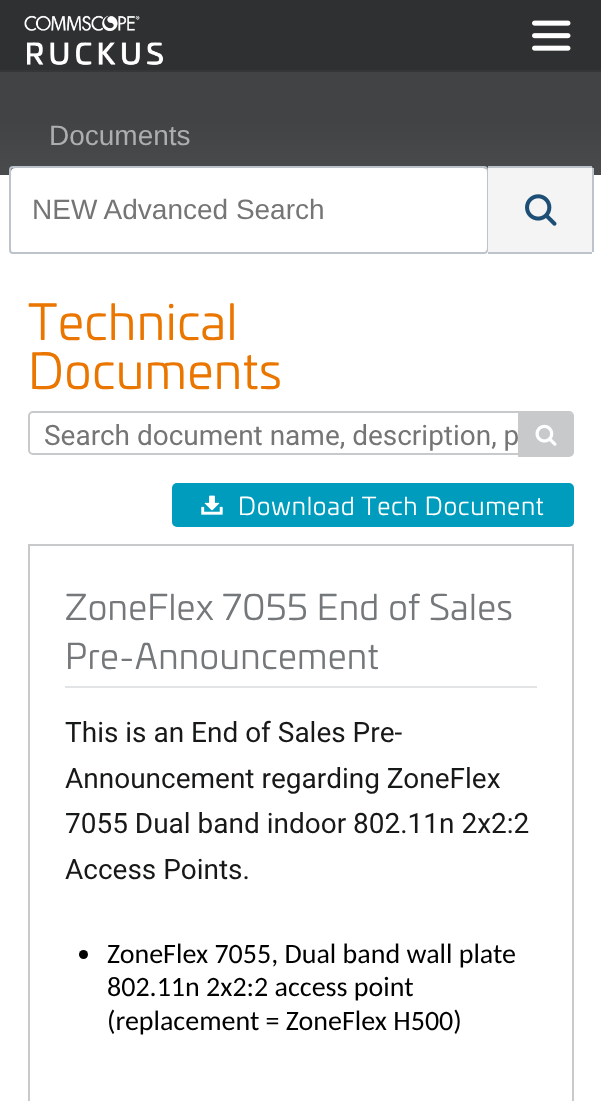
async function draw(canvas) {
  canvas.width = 601;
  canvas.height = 1101;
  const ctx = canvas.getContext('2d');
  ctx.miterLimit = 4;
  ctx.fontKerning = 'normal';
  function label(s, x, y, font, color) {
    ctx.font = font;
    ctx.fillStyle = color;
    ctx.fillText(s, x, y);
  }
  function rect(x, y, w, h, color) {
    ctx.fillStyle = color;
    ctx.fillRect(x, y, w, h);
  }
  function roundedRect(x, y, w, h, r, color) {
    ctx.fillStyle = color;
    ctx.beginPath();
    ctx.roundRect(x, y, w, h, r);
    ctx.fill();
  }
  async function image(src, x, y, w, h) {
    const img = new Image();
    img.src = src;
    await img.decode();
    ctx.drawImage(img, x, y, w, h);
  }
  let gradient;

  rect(0, 0, 601, 1101, '#fff');
  gradient = ctx.createLinearGradient(301, 0, 301, 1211);
  gradient.addColorStop(0, '#2f3031');
  gradient.addColorStop(0.1, '#2f3031');
  gradient.addColorStop(0.48, '#75787b');
  gradient.addColorStop(1, '#75787b');
  ctx.fillStyle = gradient;
  ctx.fillRect(0, 0, 601, 70);
  gradient = ctx.createLinearGradient(301, 0, 301, 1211);
  gradient.addColorStop(0, '#424344');
  gradient.addColorStop(0.1, '#424344');
  gradient.addColorStop(0.48, '#818487');
  gradient.addColorStop(1, '#818487');
  ctx.fillStyle = gradient;
  ctx.fillRect(0, 72, 601, 103);
  rect(0, 70, 601, 2, '#353637');
  await image('assets/img1.png', 24, 15, 139, 50);
  await image('assets/img2.png', 532, 20, 39, 31);
  label('Documents', 49, 145, '28px Liberation Sans', '#acaeb0');
  ctx.beginPath();
  ctx.roundRect(10, 167, 477, 86, 3);
  ctx.strokeStyle = '#bcc3ca';
  ctx.lineWidth = 2;
  ctx.stroke();
  roundedRect(11, 168, 476, 84, 4, '#fff');
  label('NEW Advanced Search', 32, 219, '28px Liberation Sans', '#757575');
  ctx.fillStyle = '#f4f4f4';
  ctx.beginPath();
  ctx.roundRect(488, 166, 105, 88, [0, 4, 4, 0]);
  ctx.fill();
  rect(488, 166, 104, 2, '#bcc3ca');
  rect(592, 168, 2, 84, '#bcc3ca');
  rect(488, 252, 104, 2, '#bcc3ca');
  await image('assets/img3.png', 525, 194, 32, 32);
  ctx.letterSpacing = '0.35px';
  label('Technical', 28, 340, '49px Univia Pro', '#ea7600');
  label('Documents', 28, 389, '49px Univia Pro', '#ea7600');
  ctx.beginPath();
  ctx.roundRect(29, 412, 544, 42, 4);
  ctx.strokeStyle = '#c7c9ca';
  ctx.stroke();
  ctx.letterSpacing = '0px';
  label('Search document name, description, p', 44, 445, '28px Roboto', '#757575');
  ctx.fillStyle = '#c7c9ca';
  ctx.beginPath();
  ctx.roundRect(518, 413, 56, 44, [0, 5, 5, 0]);
  ctx.fill();
  await image('assets/img4.png', 535, 424, 22, 22);
  roundedRect(172, 483, 402, 44, 5, '#009cbd');
  await image('assets/img5.png', 201, 495, 22, 20);
  ctx.letterSpacing = '0.7px';
  label('Download Tech Document', 238, 515, '24.5px Univia Pro', '#fff');
  ctx.strokeRect(29, 545, 544, 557);
  rect(65, 686, 472, 2, '#e3e4e5');
  ctx.letterSpacing = '0.35px';
  label('ZoneFlex 7055 End of Sales', 65, 620, '35px Univia Pro', '#75787b');
  label('Pre-Announcement', 65, 669, '35px Univia Pro', '#75787b');
  ctx.letterSpacing = '0px';
  label('This is an End of Sales Pre-', 65, 742, '28px Roboto', '#171818');
  label('Announcement regarding ZoneFlex', 65, 788, '28px Roboto', '#171818');
  label('7055 Dual band indoor 802.11n 2x2:2', 65, 833, '28px Roboto', '#171818');
  label('Access Points.', 65, 879, '28px Roboto', '#171818');
  ctx.fillStyle = '#000';
  ctx.beginPath();
  ctx.arc(83.5, 954.5, 4.5, 0, 2 * Math.PI);
  ctx.fill();
  label('ZoneFlex 7055, Dual band wall plate', 107, 963, '28px Carlito', '#000');
  label('802.11n 2x2:2 access point', 107, 996, '28px Carlito', '#000');
  label('(replacement = ZoneFlex H500)', 107, 1030, '28px Carlito', '#000');
}

draw(document.querySelector('canvas'));
